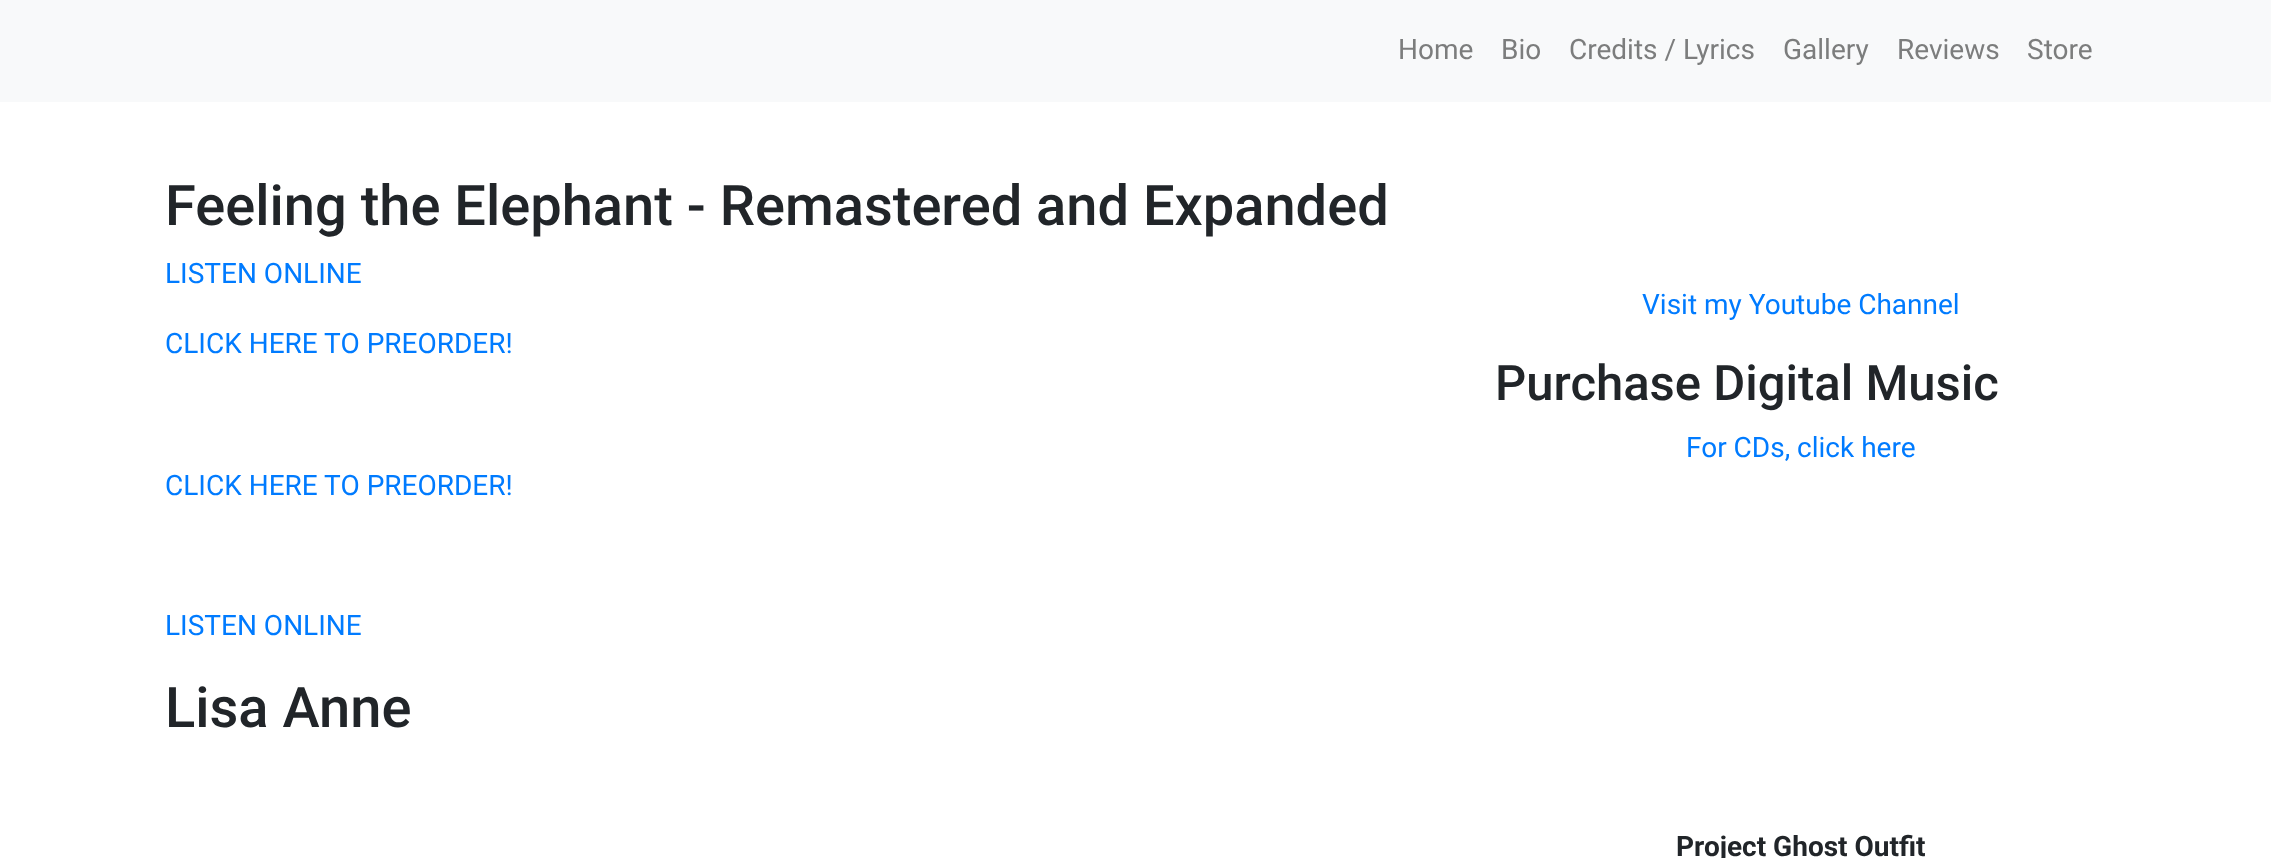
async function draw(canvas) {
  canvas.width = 2271;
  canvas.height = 858;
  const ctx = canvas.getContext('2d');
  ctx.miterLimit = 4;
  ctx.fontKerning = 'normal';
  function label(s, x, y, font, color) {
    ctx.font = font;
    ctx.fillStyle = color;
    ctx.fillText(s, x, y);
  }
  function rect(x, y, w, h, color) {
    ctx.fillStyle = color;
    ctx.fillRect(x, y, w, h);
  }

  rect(0, 0, 2271, 858, '#fff');
  rect(0, 0, 2271, 102, '#f8f9fa');
  label('Home', 1398, 59, '28px Roboto', '#7c7d7d');
  label('Bio', 1501, 59, '28px Roboto', '#7c7d7d');
  label('Credits / Lyrics', 1569, 59, '28px Roboto', '#7c7d7d');
  label('Gallery', 1783, 59, '28px Roboto', '#7c7d7d');
  label('Reviews', 1897, 59, '28px Roboto', '#7c7d7d');
  label('Store', 2027, 59, '28px Roboto', '#7c7d7d');
  label('Feeling the Elephant - Remastered and Expanded', 165, 225, '500 56px Roboto', '#212529');
  label('LISTEN ONLINE', 165, 283, '28px Roboto', '#007bff');
  label('CLICK HERE TO PREORDER!', 165, 353, '28px Roboto', '#007bff');
  label('CLICK HERE TO PREORDER!', 165, 495, '28px Roboto', '#007bff');
  label('LISTEN ONLINE', 165, 635, '28px Roboto', '#007bff');
  label('Lisa Anne', 165, 727, '500 56px Roboto', '#212529');
  label('Visit my Youtube Channel', 1642, 314, '28px Roboto', '#007bff');
  label('Purchase Digital Music', 1495, 400, '500 49px Roboto', '#212529');
  label('For CDs, click here', 1686, 457, '28px Roboto', '#007bff');
  label('Project Ghost Outfit', 1676, 856, 'bold 28px Roboto', '#212529');
}

draw(document.querySelector('canvas'));
